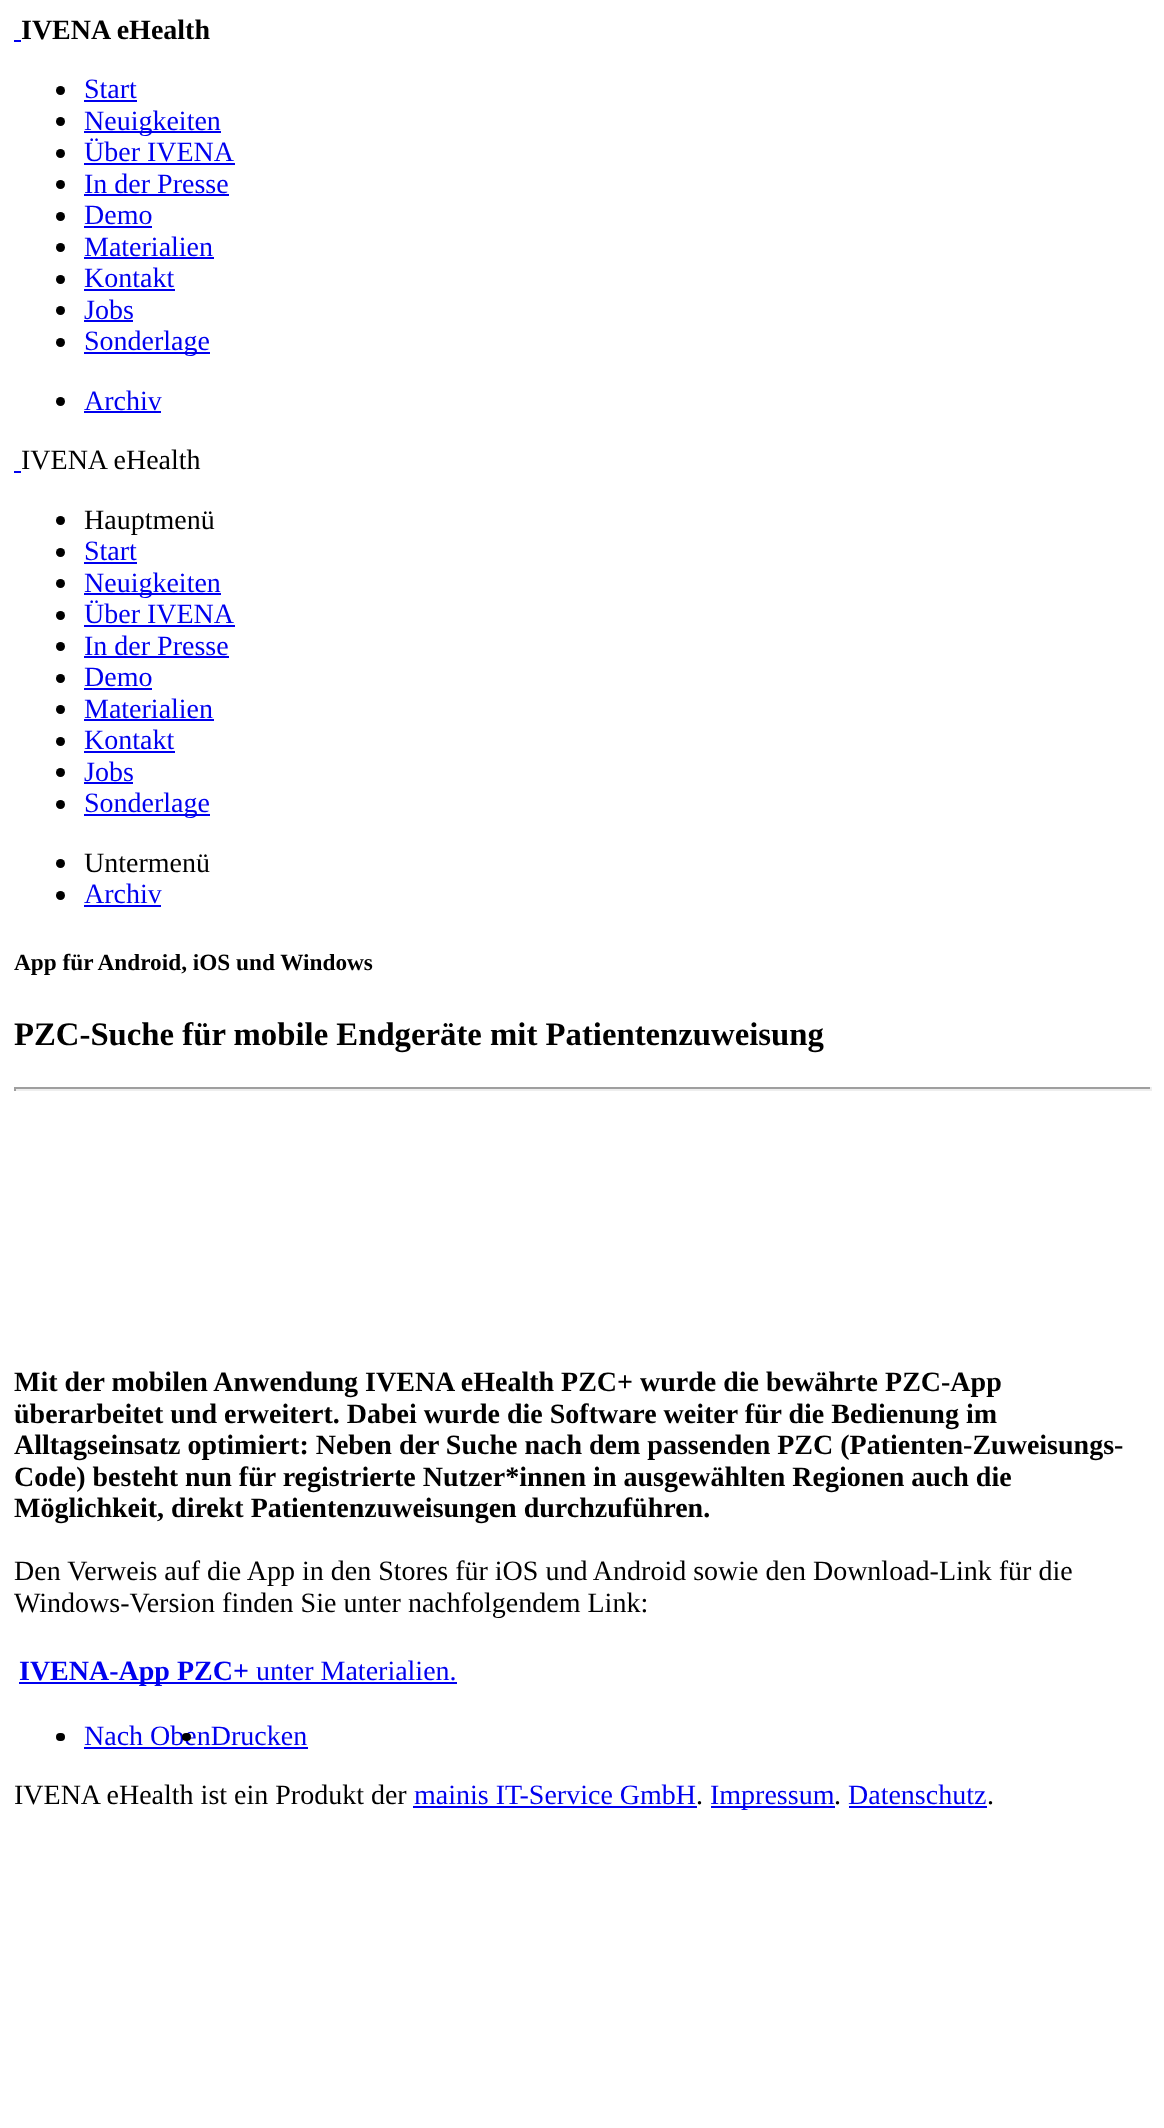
async function draw(canvas) {
  canvas.width = 1164;
  canvas.height = 2128;
  const ctx = canvas.getContext('2d');
  ctx.miterLimit = 4;
  ctx.fontKerning = 'normal';
  function label(s, x, y, font, color) {
    ctx.font = font;
    ctx.fillStyle = color;
    ctx.fillText(s, x, y);
  }
  function rect(x, y, w, h, color) {
    ctx.fillStyle = color;
    ctx.fillRect(x, y, w, h);
  }
  function roundedRect(x, y, w, h, r, color) {
    ctx.fillStyle = color;
    ctx.beginPath();
    ctx.roundRect(x, y, w, h, r);
    ctx.fill();
  }

  rect(0, 0, 1164, 2128, '#fff');
  label('IVENA eHealth', 21, 39, 'bold 28px Liberation Serif', '#000');
  rect(14, 40, 7, 2, '#00e');
  ctx.fillStyle = '#000';
  ctx.beginPath();
  ctx.arc(60.5, 90.5, 4.5, 0, 2 * Math.PI);
  ctx.fill();
  label('Start', 84, 98, '28px Liberation Serif', '#00e');
  rect(84, 100, 53, 2, '#00e');
  ctx.fillStyle = '#000';
  ctx.beginPath();
  ctx.arc(60.5, 121.5, 4.5, 0, 2 * Math.PI);
  ctx.fill();
  rect(84, 131, 137, 2, '#00e');
  label('Neuigkeiten', 84, 130, '28px Liberation Serif', '#00e');
  ctx.fillStyle = '#000';
  ctx.beginPath();
  ctx.arc(60.5, 153.5, 4.5, 0, 2 * Math.PI);
  ctx.fill();
  label('Über IVENA', 84, 161, '28px Liberation Serif', '#00e');
  rect(84, 163, 151, 2, '#00e');
  ctx.fillStyle = '#000';
  ctx.beginPath();
  ctx.arc(60.5, 184.5, 4.5, 0, 2 * Math.PI);
  ctx.fill();
  label('In der Presse', 84, 193, '28px Liberation Serif', '#00e');
  rect(84, 194, 145, 2, '#00e');
  ctx.fillStyle = '#000';
  ctx.beginPath();
  ctx.arc(60.5, 216.5, 4.5, 0, 2 * Math.PI);
  ctx.fill();
  label('Demo', 84, 224, '28px Liberation Serif', '#00e');
  rect(84, 226, 68, 2, '#00e');
  ctx.fillStyle = '#000';
  ctx.beginPath();
  ctx.arc(60.5, 247.5, 4.5, 0, 2 * Math.PI);
  ctx.fill();
  label('Materialien', 84, 256, '28px Liberation Serif', '#00e');
  rect(84, 257, 130, 2, '#00e');
  ctx.fillStyle = '#000';
  ctx.beginPath();
  ctx.arc(60.5, 279.5, 4.5, 0, 2 * Math.PI);
  ctx.fill();
  label('Kontakt', 84, 287, '28px Liberation Serif', '#00e');
  rect(84, 289, 91, 2, '#00e');
  ctx.fillStyle = '#000';
  ctx.beginPath();
  ctx.arc(60.5, 310.5, 4.5, 0, 2 * Math.PI);
  ctx.fill();
  label('Jobs', 84, 319, '28px Liberation Serif', '#00e');
  rect(84, 320, 49, 2, '#00e');
  ctx.fillStyle = '#000';
  ctx.beginPath();
  ctx.arc(60.5, 342.5, 4.5, 0, 2 * Math.PI);
  ctx.fill();
  rect(84, 352, 126, 2, '#00e');
  label('Sonderlage', 84, 350, '28px Liberation Serif', '#00e');
  ctx.fillStyle = '#000';
  ctx.beginPath();
  ctx.arc(60.5, 401.5, 4.5, 0, 2 * Math.PI);
  ctx.fill();
  label('Archiv', 84, 410, '28px Liberation Serif', '#00e');
  rect(84, 411, 77, 2, '#00e');
  label('IVENA eHealth', 21, 469, '28px Liberation Serif', '#000');
  rect(14, 471, 7, 2, '#00e');
  ctx.fillStyle = '#000';
  ctx.beginPath();
  ctx.arc(60.5, 520.5, 4.5, 0, 2 * Math.PI);
  ctx.fill();
  label('Hauptmenü', 84, 529, '28px Liberation Serif', '#000');
  ctx.beginPath();
  ctx.arc(60.5, 552.5, 4.5, 0, 2 * Math.PI);
  ctx.fill();
  label('Start', 84, 560, '28px Liberation Serif', '#00e');
  rect(84, 562, 53, 2, '#00e');
  ctx.fillStyle = '#000';
  ctx.beginPath();
  ctx.arc(60.5, 583.5, 4.5, 0, 2 * Math.PI);
  ctx.fill();
  rect(84, 593, 137, 2, '#00e');
  label('Neuigkeiten', 84, 592, '28px Liberation Serif', '#00e');
  ctx.fillStyle = '#000';
  ctx.beginPath();
  ctx.arc(60.5, 615.5, 4.5, 0, 2 * Math.PI);
  ctx.fill();
  label('Über IVENA', 84, 623, '28px Liberation Serif', '#00e');
  rect(84, 625, 151, 2, '#00e');
  ctx.fillStyle = '#000';
  ctx.beginPath();
  ctx.arc(60.5, 646.5, 4.5, 0, 2 * Math.PI);
  ctx.fill();
  label('In der Presse', 84, 655, '28px Liberation Serif', '#00e');
  rect(84, 656, 145, 2, '#00e');
  ctx.fillStyle = '#000';
  ctx.beginPath();
  ctx.arc(60.5, 678.5, 4.5, 0, 2 * Math.PI);
  ctx.fill();
  label('Demo', 84, 686, '28px Liberation Serif', '#00e');
  rect(84, 688, 68, 2, '#00e');
  ctx.fillStyle = '#000';
  ctx.beginPath();
  ctx.arc(60.5, 709.5, 4.5, 0, 2 * Math.PI);
  ctx.fill();
  label('Materialien', 84, 718, '28px Liberation Serif', '#00e');
  rect(84, 719, 130, 2, '#00e');
  ctx.fillStyle = '#000';
  ctx.beginPath();
  ctx.arc(60.5, 741.5, 4.5, 0, 2 * Math.PI);
  ctx.fill();
  label('Kontakt', 84, 749, '28px Liberation Serif', '#00e');
  rect(84, 751, 91, 2, '#00e');
  ctx.fillStyle = '#000';
  ctx.beginPath();
  ctx.arc(60.5, 772.5, 4.5, 0, 2 * Math.PI);
  ctx.fill();
  label('Jobs', 84, 781, '28px Liberation Serif', '#00e');
  rect(84, 782, 49, 2, '#00e');
  ctx.fillStyle = '#000';
  ctx.beginPath();
  ctx.arc(60.5, 804.5, 4.5, 0, 2 * Math.PI);
  ctx.fill();
  rect(84, 814, 126, 2, '#00e');
  label('Sonderlage', 84, 812, '28px Liberation Serif', '#00e');
  ctx.fillStyle = '#000';
  ctx.beginPath();
  ctx.arc(60.5, 863.5, 4.5, 0, 2 * Math.PI);
  ctx.fill();
  label('Untermenü', 84, 872, '28px Liberation Serif', '#000');
  ctx.beginPath();
  ctx.arc(60.5, 895.5, 4.5, 0, 2 * Math.PI);
  ctx.fill();
  label('Archiv', 84, 903, '28px Liberation Serif', '#00e');
  rect(84, 905, 77, 2, '#00e');
  label('App für Android, iOS und Windows', 14, 970, 'bold 23.25px Liberation Serif', '#000');
  label('PZC-Suche für mobile Endgeräte mit Patientenzuweisung', 14, 1045, 'bold 32.75px Liberation Serif', '#000');
  rect(14, 1087, 1138, 2, '#9f9f9f');
  rect(1150, 1087, 2, 4, '#eee');
  rect(14, 1089, 1138, 2, '#eee');
  rect(14, 1087, 2, 4, '#9f9f9f');
  label('Mit der mobilen Anwendung IVENA eHealth PZC+ wurde die bewährte PZC-App', 14, 1391, 'bold 28px Liberation Serif', '#000');
  label('überarbeitet und erweitert. Dabei wurde die Software weiter für die Bedienung im', 14, 1423, 'bold 28px Liberation Serif', '#000');
  label('Alltagseinsatz optimiert: Neben der Suche nach dem passenden PZC (Patienten-Zuweisungs-', 14, 1454, 'bold 28px Liberation Serif', '#000');
  label('Code) besteht nun für registrierte Nutzer*innen in ausgewählten Regionen auch die', 14, 1486, 'bold 28px Liberation Serif', '#000');
  label('Möglichkeit, direkt Patientenzuweisungen durchzuführen.', 14, 1517, 'bold 28px Liberation Serif', '#000');
  label('Den Verweis auf die App in den Stores für iOS und Android sowie den Download-Link für die', 14, 1580, '28px Liberation Serif', '#000');
  label('Windows-Version finden Sie unter nachfolgendem Link:', 14, 1612, '28px Liberation Serif', '#000');
  rect(19, 1682, 438, 2, '#00e');
  label('IVENA-App PZC+', 19, 1680, 'bold 28px Liberation Serif', '#00e');
  label('unter Materialien.', 256, 1680, '28px Liberation Serif', '#00e');
  roundedRect(56, 1733, 9, 8, 4, '#000');
  label('Nach ObenDrucken', 84, 1745, '28px Liberation Serif', '#00e');
  rect(84, 1747, 224, 2, '#00e');
  roundedRect(182, 1733, 9, 8, 4, '#000');
  label('IVENA eHealth ist ein Produkt der', 14, 1804, '28px Liberation Serif', '#000');
  label('mainis IT-Service GmbH', 414, 1804, '28px Liberation Serif', '#00e');
  rect(413, 1806, 284, 2, '#00e');
  label('.', 696, 1804, '28px Liberation Serif', '#000');
  rect(711, 1806, 124, 2, '#00e');
  label('Impressum', 710, 1804, '28px Liberation Serif', '#00e');
  label('.', 834, 1804, '28px Liberation Serif', '#000');
  label('Datenschutz', 848, 1804, '28px Liberation Serif', '#00e');
  rect(849, 1806, 138, 2, '#00e');
  label('.', 987, 1804, '28px Liberation Serif', '#000');
}

draw(document.querySelector('canvas'));
